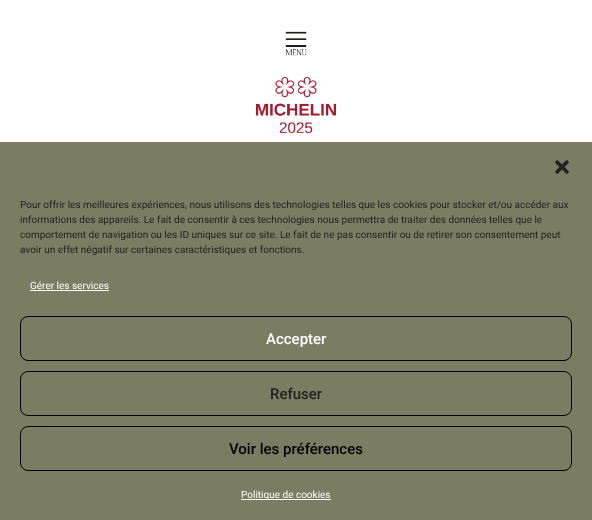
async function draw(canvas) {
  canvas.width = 592;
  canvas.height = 520;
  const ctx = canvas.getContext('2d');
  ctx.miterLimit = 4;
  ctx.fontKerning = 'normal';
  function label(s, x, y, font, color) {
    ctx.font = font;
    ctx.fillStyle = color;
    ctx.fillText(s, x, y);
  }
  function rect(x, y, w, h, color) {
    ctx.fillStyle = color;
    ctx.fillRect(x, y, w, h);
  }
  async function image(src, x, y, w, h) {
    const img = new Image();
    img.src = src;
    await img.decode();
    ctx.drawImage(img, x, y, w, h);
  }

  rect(0, 0, 592, 520, '#fff');
  await image('assets/img1.png', 285, 31, 22, 25);
  await image('assets/img2.png', 256, 77, 80, 56);
  rect(0, 142, 592, 378, '#7c7c63');
  await image('assets/img3.png', 555, 160, 14, 14);
  label('Pour offrir les meilleures expériences, nous utilisons des technologies telles que les cookies pour stocker et/ou accéder aux', 20, 208, '10px Roboto', '#222');
  label('informations des appareils. Le fait de consentir à ces technologies nous permettra de traiter des données telles que le', 20, 223, '10px Roboto', '#222');
  label('comportement de navigation ou les ID uniques sur ce site. Le fait de ne pas consentir ou de retirer son consentement peut', 20, 238, '10px Roboto', '#222');
  label('avoir un effet négatif sur certaines caractéristiques et fonctions.', 20, 253, '10px Roboto', '#222');
  label('Gérer les services', 30, 289, '10px Roboto', '#fff');
  rect(30, 290, 79, 1, '#fff');
  ctx.beginPath();
  ctx.roundRect(20.5, 316.5, 551, 44, 7.5);
  ctx.strokeStyle = '#000';
  ctx.stroke();
  label('Accepter', 266, 344, '500 15px Roboto', '#fff');
  ctx.beginPath();
  ctx.roundRect(20.5, 371.5, 551, 44, 7.5);
  ctx.stroke();
  label('Refuser', 270, 399, '500 15px Roboto', '#222');
  ctx.beginPath();
  ctx.roundRect(20.5, 426.5, 551, 44, 7.5);
  ctx.stroke();
  label('Voir les préférences', 229, 454, '500 15px Roboto', '#000');
  rect(241, 499, 90, 1, '#fff');
  label('Politique de cookies', 241, 498, '10px Roboto', '#fff');
}

draw(document.querySelector('canvas'));
